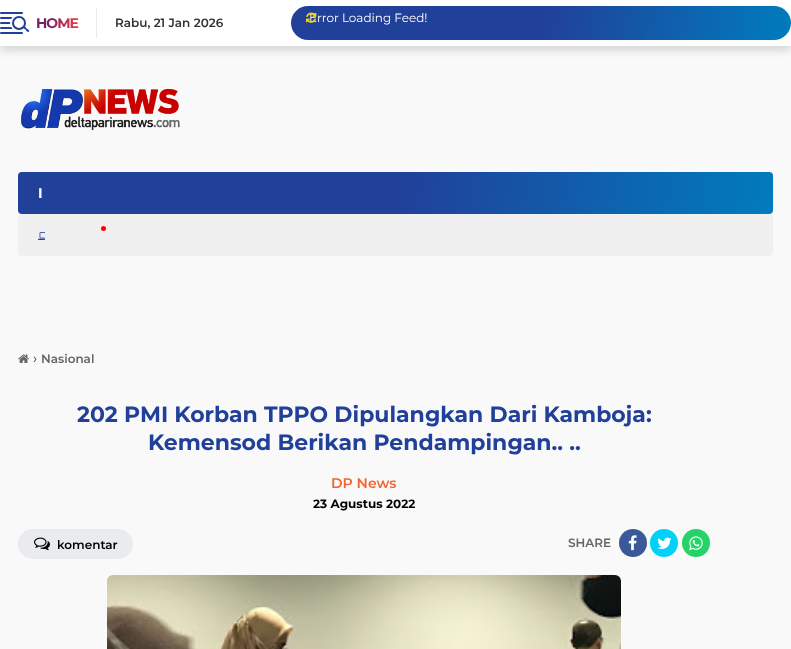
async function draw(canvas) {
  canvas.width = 791;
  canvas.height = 649;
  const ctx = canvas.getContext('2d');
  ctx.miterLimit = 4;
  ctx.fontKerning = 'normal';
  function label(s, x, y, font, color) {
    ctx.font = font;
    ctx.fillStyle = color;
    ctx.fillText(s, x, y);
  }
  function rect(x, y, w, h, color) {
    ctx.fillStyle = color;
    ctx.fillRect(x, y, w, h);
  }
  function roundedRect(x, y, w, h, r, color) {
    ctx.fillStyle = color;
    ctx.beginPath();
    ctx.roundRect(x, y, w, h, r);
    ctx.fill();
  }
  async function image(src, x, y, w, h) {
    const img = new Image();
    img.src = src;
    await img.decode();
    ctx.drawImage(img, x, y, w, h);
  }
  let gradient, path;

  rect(0, 0, 791, 649, '#f9f9f9');
  ctx.fillStyle = '#00000026';
  ctx.filter = 'blur(4px)';
  ctx.beginPath();
  ctx.rect(0, 4, 791, 46);
  ctx.fill();
  ctx.filter = 'none';
  rect(0, 0, 791, 46, '#fff');
  roundedRect(0, 12, 23, 2, 1, '#21409a');
  roundedRect(0, 17, 23, 2, 1, '#21409a');
  roundedRect(0, 22, 23, 2, 1, '#21409a');
  roundedRect(0, 27, 23, 2, 1, '#21409a');
  ctx.fillStyle = '#fff';
  ctx.beginPath();
  ctx.arc(18, 23, 8, 0, 2 * Math.PI);
  ctx.fill();
  ctx.beginPath();
  ctx.arc(19, 23, 6, 0, 2 * Math.PI);
  ctx.strokeStyle = '#21409a';
  ctx.lineWidth = 2;
  ctx.stroke();
  ctx.fillStyle = '#21409a';
  path = new Path2D('M23 26.5C24 25 26 27.5 26.5 28.5C27.5 29 30 30.5 29 31.5C28 33 26 30.5 25.5 29.5C24.5 29 22 27.5 23 26.5Z');
  ctx.fill(path);
  roundedRect(0, 32, 23, 2, 1, '#21409a');
  rect(96, 8, 1, 30, '#e9ebee');
  ctx.letterSpacing = '-1px';
  ctx.font = 'bold 14px Montserrat';
  gradient = ctx.createLinearGradient(36, 23, 78, 23);
  gradient.addColorStop(0.3, '#792166');
  gradient.addColorStop(1, '#ed3c3f');
  ctx.fillStyle = gradient;
  ctx.fillText('HOME', 36, 28);
  ctx.letterSpacing = '0px';
  label('Rabu, 21 Jan 2026', 115, 27, '600 12px Montserrat', '#333');
  gradient = ctx.createLinearGradient(296, -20, 786, 66);
  gradient.addColorStop(0.5, '#21409a');
  gradient.addColorStop(1, '#007cbd');
  ctx.fillStyle = gradient;
  ctx.beginPath();
  ctx.roundRect(291, 6, 500, 34, 17);
  ctx.fill();
  label('Error Loading Feed!', 309, 22, '12px Montserrat', '#fff');
  await image('assets/img1.png', 306, 12, 11, 11);
  await image('assets/img2.png', 21, 88, 159, 42);
  gradient = ctx.createLinearGradient(26, 128, 765, 258);
  gradient.addColorStop(0.5, '#21409a');
  gradient.addColorStop(1, '#007cbd');
  ctx.fillStyle = gradient;
  ctx.beginPath();
  ctx.roundRect(18, 172, 755, 42, 4);
  ctx.fill();
  label('I', 38, 198, 'bold 14px Montserrat', '#fff');
  roundedRect(18, 214, 755, 42, 4, '#f0f0f0');
  ctx.fillStyle = '#f00';
  ctx.beginPath();
  ctx.arc(103.5, 228.5, 2.5, 0, 2 * Math.PI);
  ctx.fill();
  await image('assets/img3.png', 38, 232, 7, 8);
  await image('assets/img4.png', 18, 354, 11, 9);
  label('›', 33, 363, '14px Montserrat', '#333');
  label('Nasional', 41, 363, '600 12px Montserrat', '#666');
  label('202 PMI Korban TPPO Dipulangkan Dari Kamboja:', 77, 422, 'bold 22px Montserrat', '#21409a');
  label('Kemensod Berikan Pendampingan.. ..', 148, 450, 'bold 22px Montserrat', '#21409a');
  label('DP News', 331, 488, '600 14px Montserrat', '#ef662f');
  label('23 Agustus 2022', 313, 508, 'bold 12px Montserrat', '#000');
  roundedRect(18, 529, 115, 30, 15, '#e9ebee');
  await image('assets/img5.png', 34, 537, 16, 14);
  label('komentar', 57, 549, '600 12px Montserrat', '#000');
  label('SHARE', 568, 547, '600 12px Montserrat', '#666');
  ctx.fillStyle = '#3b5998';
  ctx.beginPath();
  ctx.arc(633, 543, 14, 0, 2 * Math.PI);
  ctx.fill();
  await image('assets/img6.png', 628, 535, 9, 16);
  ctx.fillStyle = '#00d1f7';
  ctx.beginPath();
  ctx.arc(664, 543, 14, 0, 2 * Math.PI);
  ctx.fill();
  await image('assets/img7.png', 657, 537, 15, 12);
  ctx.fillStyle = '#25d366';
  ctx.beginPath();
  ctx.arc(696, 543, 14, 0, 2 * Math.PI);
  ctx.fill();
  await image('assets/img8.png', 689, 536, 14, 15);
  await image('assets/img9.png', 107, 575, 514, 74);
}

draw(document.querySelector('canvas'));
